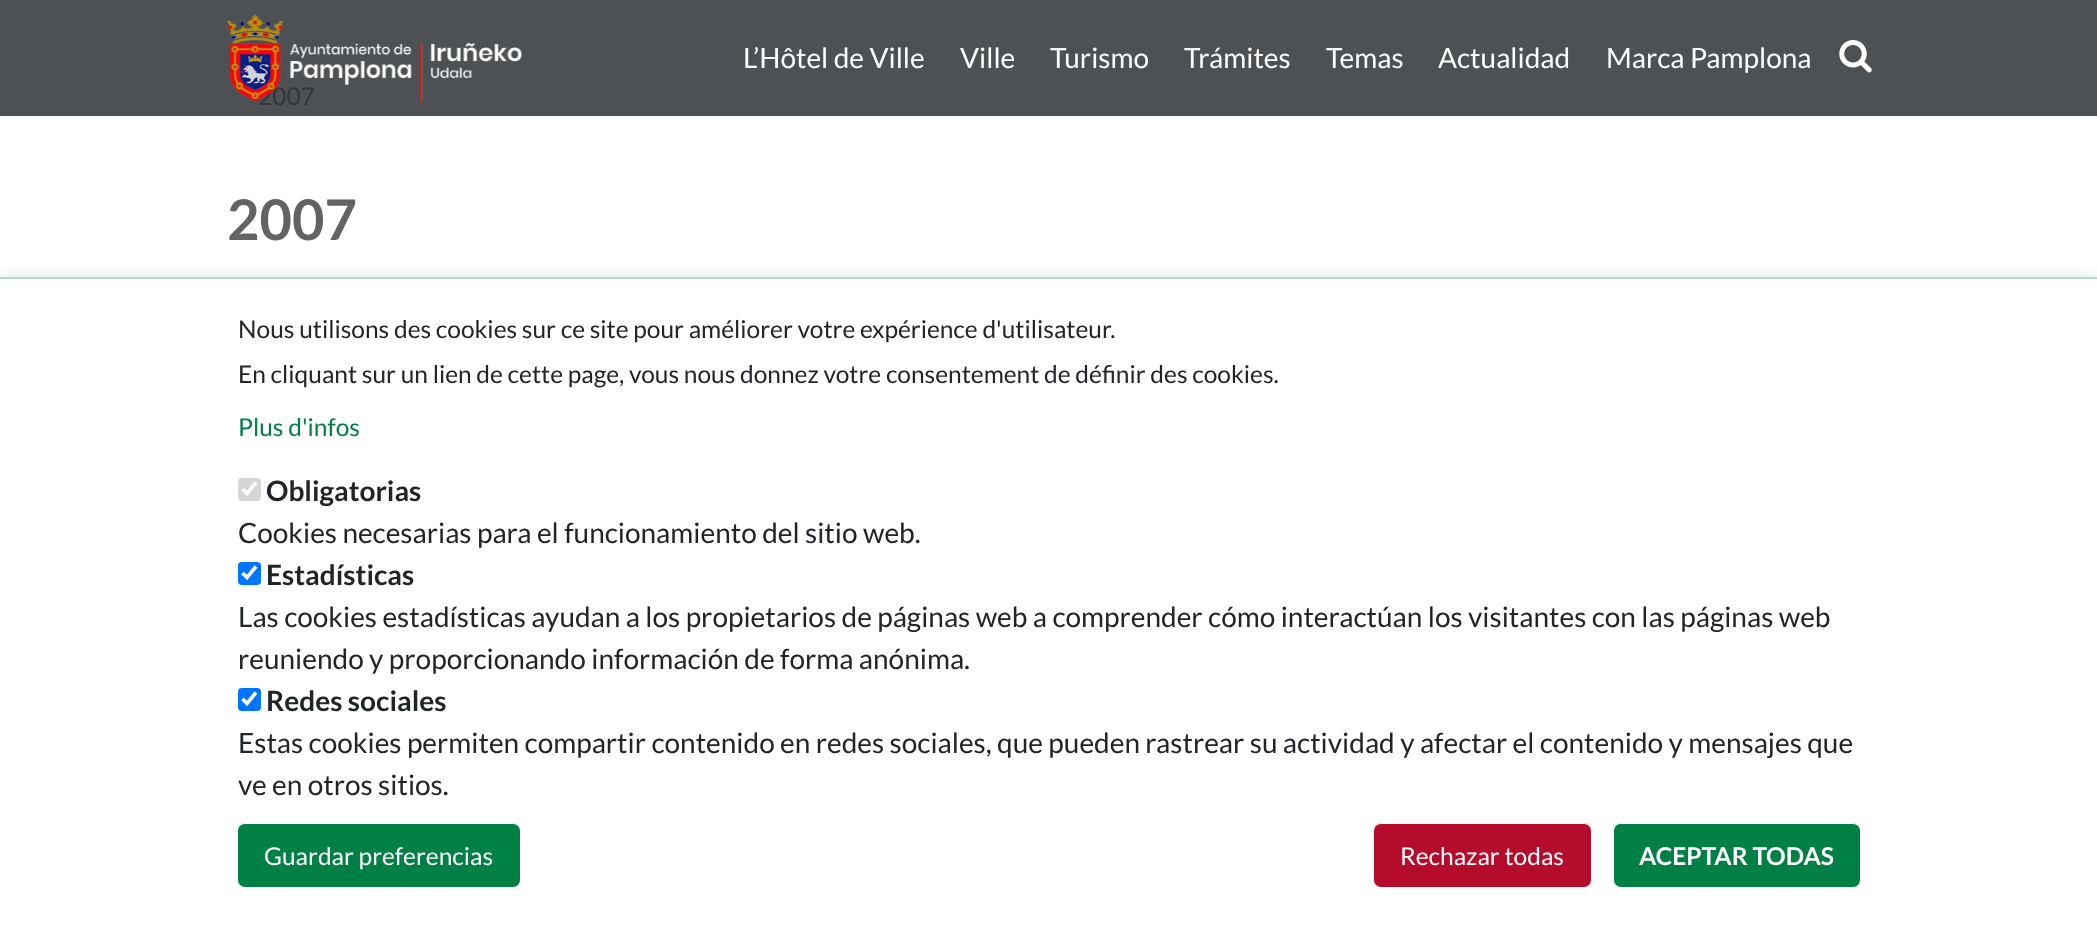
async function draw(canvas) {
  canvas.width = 2097;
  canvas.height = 949;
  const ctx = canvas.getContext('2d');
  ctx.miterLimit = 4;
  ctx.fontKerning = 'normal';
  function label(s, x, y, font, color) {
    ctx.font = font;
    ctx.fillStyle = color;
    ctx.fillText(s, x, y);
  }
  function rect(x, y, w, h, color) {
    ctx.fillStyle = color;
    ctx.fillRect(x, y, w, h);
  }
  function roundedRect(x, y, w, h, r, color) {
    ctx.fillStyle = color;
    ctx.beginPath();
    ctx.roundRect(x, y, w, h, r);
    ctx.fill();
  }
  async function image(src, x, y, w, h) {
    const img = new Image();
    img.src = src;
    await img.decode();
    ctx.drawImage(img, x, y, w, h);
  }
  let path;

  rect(0, 0, 2097, 949, '#fff');
  rect(0, 0, 2097, 116, '#4d5154');
  label('2007', 258, 105, '24.5px Lato', '#323539');
  await image('assets/img1.png', 227, 14, 295, 88);
  label('L’Hôtel de Ville', 743, 68, '28px Lato', '#fff');
  label('Ville', 960, 68, '28px Lato', '#fff');
  label('Turismo', 1050, 68, '28px Lato', '#fff');
  label('Trámites', 1184, 68, '28px Lato', '#fff');
  label('Temas', 1326, 68, '28px Lato', '#fff');
  label('Actualidad', 1438, 68, '28px Lato', '#fff');
  label('Marca Pamplona', 1606, 68, '28px Lato', '#fff');
  await image('assets/img2.png', 1839, 40, 33, 33);
  label('2007', 227, 240, 'bold 56px Lato', '#636363');
  ctx.fillStyle = '#0000001f';
  ctx.filter = 'blur(9px)';
  ctx.beginPath();
  ctx.rect(0, 278, 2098, 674);
  ctx.fill();
  ctx.filter = 'none';
  rect(0, 279, 2097, 670, '#fff');
  rect(0, 277, 2097, 2, '#b3d9c7');
  label('Nous utilisons des cookies sur ce site pour améliorer votre expérience d\'utilisateur.', 238, 338, '24.5px Lato', '#212529');
  label('En cliquant sur un lien de cette page, vous nous donnez votre consentement de définir des cookies.', 238, 383, '24.5px Lato', '#212529');
  label('Plus d\'infos', 238, 436, '24.5px Lato', '#008044');
  roundedRect(238, 478, 23, 23, 4, '#d6d6d6');
  path = new Path2D('M242.5 489L247 493.5L256 482.5');
  ctx.strokeStyle = '#fff';
  ctx.lineWidth = 3.6;
  ctx.stroke(path);
  label('Obligatorias', 266, 501, 'bold 28px Lato', '#212529');
  label('Cookies necesarias para el funcionamiento del sitio web.', 238, 543, '28px Lato', '#212529');
  roundedRect(238, 562, 23, 23, 4, '#0075ff');
  path = new Path2D('M242.5 573L247 577.5L256 566.5');
  ctx.stroke(path);
  label('Estadísticas', 266, 585, 'bold 28px Lato', '#212529');
  label('Las cookies estadísticas ayudan a los propietarios de páginas web a comprender cómo interactúan los visitantes con las páginas web', 238, 627, '28px Lato', '#212529');
  label('reuniendo y proporcionando información de forma anónima.', 238, 669, '28px Lato', '#212529');
  roundedRect(238, 688, 23, 23, 4, '#0075ff');
  path = new Path2D('M242.5 699L247 703.5L256 692.5');
  ctx.stroke(path);
  label('Redes sociales', 266, 711, 'bold 28px Lato', '#212529');
  label('Estas cookies permiten compartir contenido en redes sociales, que pueden rastrear su actividad y afectar el contenido y mensajes que', 238, 753, '28px Lato', '#212529');
  label('ve en otros sitios.', 238, 795, '28px Lato', '#212529');
  roundedRect(238, 823, 282, 64, 7, '#008044');
  ctx.fillStyle = '#fff';
  path = new Path2D('M245 824H513C517 824 520 827 520 831V830C520 826 517 823 513 823H245C241 823 238 826 238 830V831C238 827 241 824 245 824Z');
  ctx.fill(path);
  label('Guardar preferencias', 264, 865, '24.5px Lato', '#fff');
  roundedRect(1374, 823, 217, 64, 7, '#b50c2c');
  ctx.fillStyle = '#fff';
  path = new Path2D('M1381 824H1584C1588 824 1591 827 1591 831V830C1591 826 1588 823 1584 823H1381C1377 823 1374 826 1374 830V831C1374 827 1377 824 1381 824Z');
  ctx.fill(path);
  label('Rechazar todas', 1400, 865, '24.5px Lato', '#fff');
  roundedRect(1614, 823, 246, 64, 7, '#008044');
  ctx.fillStyle = '#fff';
  path = new Path2D('M1620 824H1853C1857 824 1860 827 1860 831V830C1860 826 1857 823 1853 823H1621C1617 823 1614 826 1614 830V831C1614 827 1617 824 1620 824Z');
  ctx.fill(path);
  label('ACEPTAR TODAS', 1639, 865, 'bold 24.5px Lato', '#fff');
}

draw(document.querySelector('canvas'));
